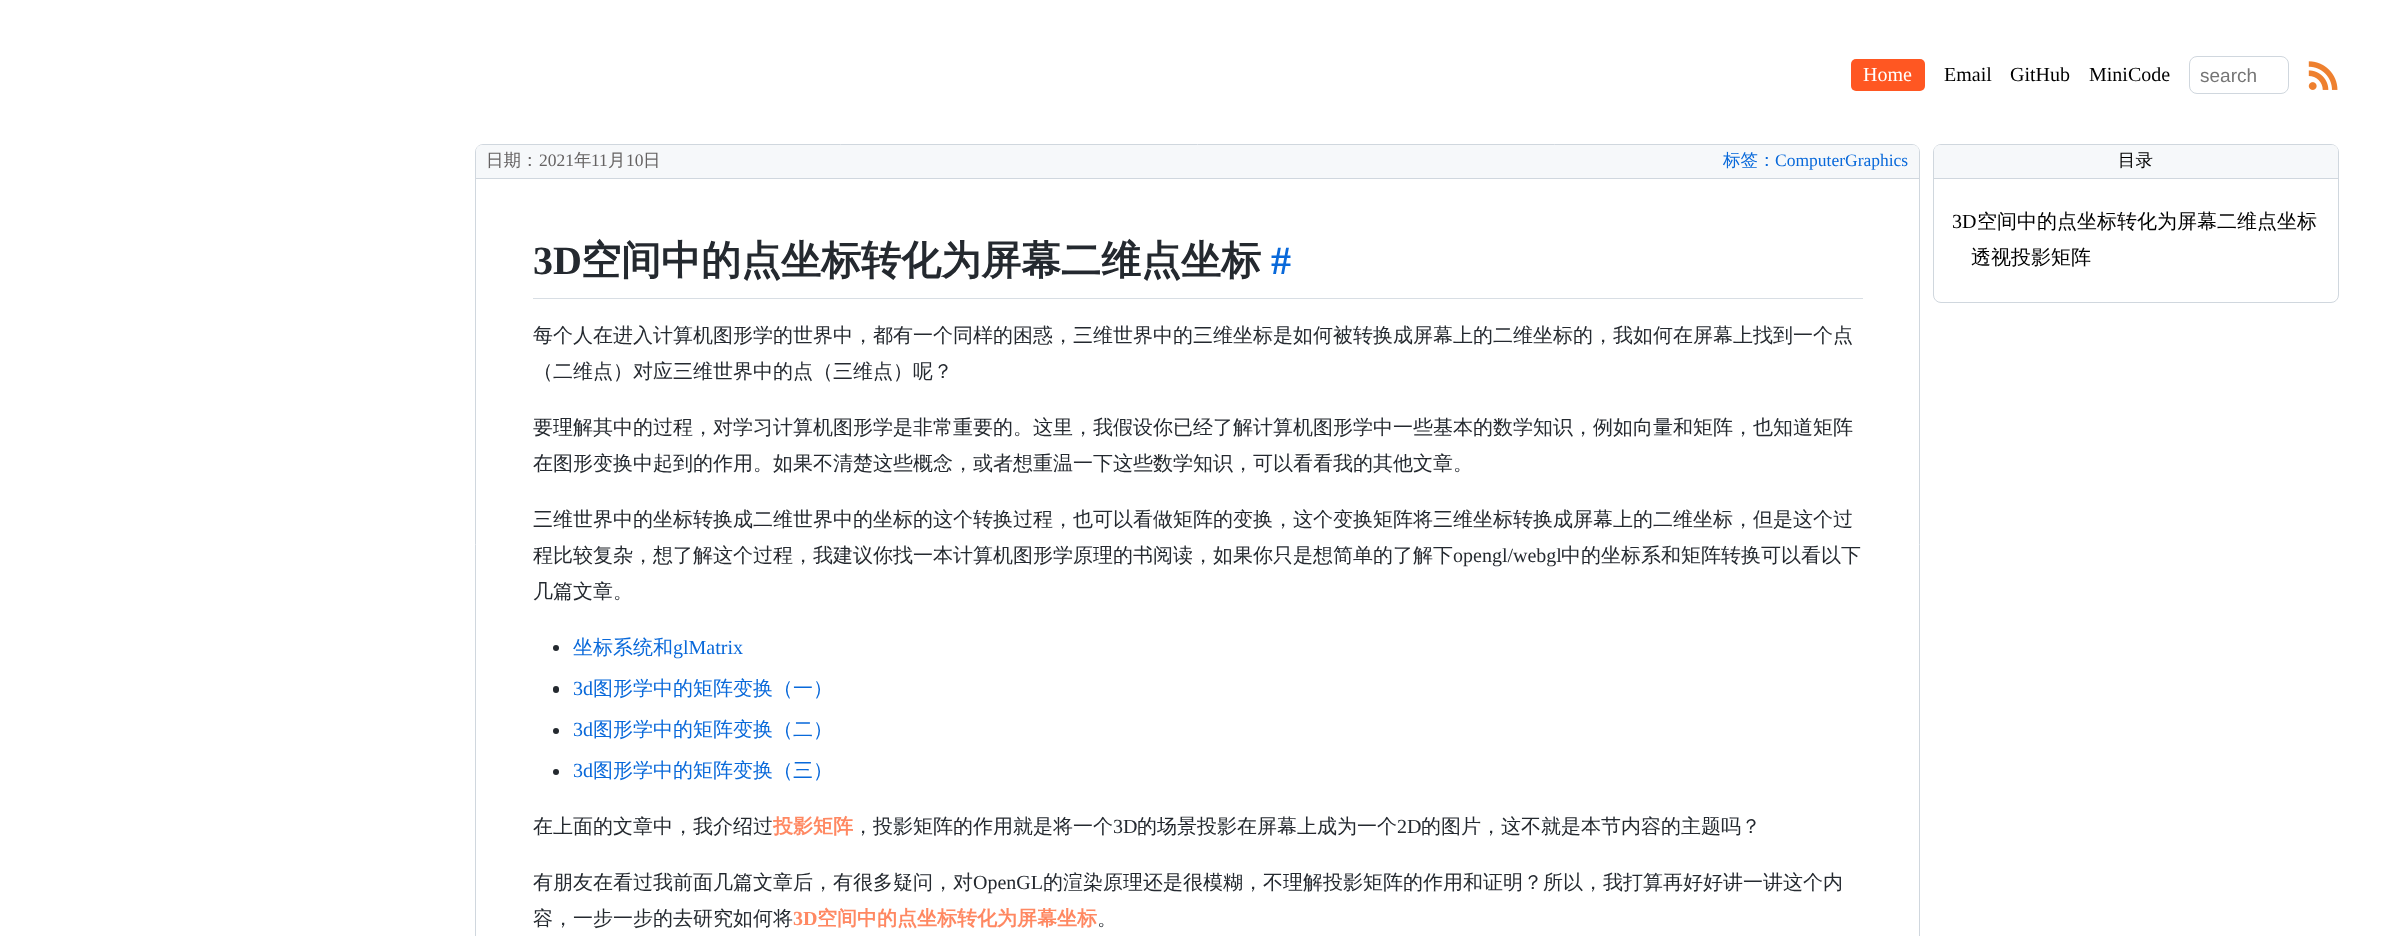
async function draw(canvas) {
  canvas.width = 2395;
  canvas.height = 936;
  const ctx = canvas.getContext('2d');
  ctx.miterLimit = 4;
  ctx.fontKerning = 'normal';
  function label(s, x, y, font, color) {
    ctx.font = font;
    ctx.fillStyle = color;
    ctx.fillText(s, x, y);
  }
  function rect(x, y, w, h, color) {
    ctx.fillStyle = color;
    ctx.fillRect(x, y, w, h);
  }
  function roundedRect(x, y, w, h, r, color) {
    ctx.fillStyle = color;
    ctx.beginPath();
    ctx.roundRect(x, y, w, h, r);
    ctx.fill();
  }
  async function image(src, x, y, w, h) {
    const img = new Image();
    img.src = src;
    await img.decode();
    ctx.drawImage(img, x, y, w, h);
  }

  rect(0, 0, 2395, 936, '#fff');
  roundedRect(1851, 59, 74, 32, 5, '#ff5722');
  label('Home', 1863, 81, '20px Liberation Serif', '#fff');
  label('Email', 1944, 81, '20px Liberation Serif', '#000');
  label('GitHub', 2010, 81, '20px Liberation Serif', '#000');
  label('MiniCode', 2089, 81, '20px Liberation Serif', '#000');
  ctx.beginPath();
  ctx.roundRect(2189.5, 56.5, 99, 37, 7.5);
  ctx.strokeStyle = '#d0d7de';
  ctx.stroke();
  label('search', 2200, 82, '19px Liberation Sans', '#757575');
  await image('assets/img1.png', 2308, 61, 30, 29);
  ctx.beginPath();
  ctx.roundRect(475.5, 144.5, 1444, 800, 7.5);
  ctx.stroke();
  ctx.fillStyle = '#f6f8fa';
  ctx.beginPath();
  ctx.roundRect(476, 145, 1443, 34, [6, 6, 0, 0]);
  ctx.fill();
  rect(476, 178, 1443, 1, '#d0d7de');
  label('日期：', 486, 166, '500 17.5px WenQuanYi Zen Hei', '#656262');
  label('2021', 539, 166, '17.5px Liberation Serif', '#656262');
  label('年', 574, 166, '500 17.5px WenQuanYi Zen Hei', '#656262');
  label('11', 591, 166, '17.5px Liberation Serif', '#656262');
  label('月', 608, 166, '500 17.5px WenQuanYi Zen Hei', '#656262');
  label('10', 626, 166, '17.5px Liberation Serif', '#656262');
  label('日', 643, 166, '500 17.5px WenQuanYi Zen Hei', '#656262');
  label('标签：', 1723, 166, '500 17.5px WenQuanYi Zen Hei', '#0969da');
  label('ComputerGraphics', 1775, 166, '17.5px Liberation Serif', '#0969da');
  rect(533, 298, 1330, 1, '#d8dee4');
  label('3D', 533, 274, 'bold 40px Liberation Serif', '#24292f');
  label('空间中的点坐标转化为屏幕二维点坐标', 581, 274, 'bold 40px WenQuanYi Zen Hei', '#24292f');
  label('#', 1271, 274, 'bold 40px Liberation Serif', '#0969da');
  label('每个人在进入计算机图形学的世界中，都有一个同样的困惑，三维世界中的三维坐标是如何被转换成屏幕上的二维坐标的，我如何在屏幕上找到一个点', 533, 342, '500 20px WenQuanYi Zen Hei', '#24292f');
  label('（二维点）对应三维世界中的点（三维点）呢？', 533, 378, '500 20px WenQuanYi Zen Hei', '#24292f');
  label('要理解其中的过程，对学习计算机图形学是非常重要的。这里，我假设你已经了解计算机图形学中一些基本的数学知识，例如向量和矩阵，也知道矩阵', 533, 434, '500 20px WenQuanYi Zen Hei', '#24292f');
  label('在图形变换中起到的作用。如果不清楚这些概念，或者想重温一下这些数学知识，可以看看我的其他文章。', 533, 470, '500 20px WenQuanYi Zen Hei', '#24292f');
  label('三维世界中的坐标转换成二维世界中的坐标的这个转换过程，也可以看做矩阵的变换，这个变换矩阵将三维坐标转换成屏幕上的二维坐标，但是这个过', 533, 526, '500 20px WenQuanYi Zen Hei', '#24292f');
  label('程比较复杂，想了解这个过程，我建议你找一本计算机图形学原理的书阅读，如果你只是想简单的了解下', 533, 562, '500 20px WenQuanYi Zen Hei', '#24292f');
  label('opengl/webgl', 1453, 562, '20px Liberation Serif', '#24292f');
  label('中的坐标系和矩阵转换可以看以下', 1561, 562, '500 20px WenQuanYi Zen Hei', '#24292f');
  label('几篇文章。', 533, 598, '500 20px WenQuanYi Zen Hei', '#24292f');
  ctx.beginPath();
  ctx.arc(556, 648, 3, 0, 2 * Math.PI);
  ctx.fill();
  label('坐标系统和', 573, 654, '500 20px WenQuanYi Zen Hei', '#0969da');
  label('glMatrix', 673, 654, '20px Liberation Serif', '#0969da');
  roundedRect(553, 686, 6, 7, 3, '#24292f');
  label('3d', 573, 695, '20px Liberation Serif', '#0969da');
  label('图形学中的矩阵变换（一）', 593, 695, '500 20px WenQuanYi Zen Hei', '#0969da');
  ctx.fillStyle = '#24292f';
  ctx.beginPath();
  ctx.arc(556, 731, 3, 0, 2 * Math.PI);
  ctx.fill();
  label('3d', 573, 736, '20px Liberation Serif', '#0969da');
  label('图形学中的矩阵变换（二）', 593, 736, '500 20px WenQuanYi Zen Hei', '#0969da');
  ctx.fillStyle = '#24292f';
  ctx.beginPath();
  ctx.arc(556, 772, 3, 0, 2 * Math.PI);
  ctx.fill();
  label('3d', 573, 777, '20px Liberation Serif', '#0969da');
  label('图形学中的矩阵变换（三）', 593, 777, '500 20px WenQuanYi Zen Hei', '#0969da');
  label('在上面的文章中，我介绍过', 533, 833, '500 20px WenQuanYi Zen Hei', '#24292f');
  label('投影矩阵', 773, 833, 'bold 20px WenQuanYi Zen Hei', '#ff8862');
  label('，投影矩阵的作用就是将一个', 853, 833, '500 20px WenQuanYi Zen Hei', '#24292f');
  label('3D', 1113, 833, '20px Liberation Serif', '#24292f');
  label('的场景投影在屏幕上成为一个', 1137, 833, '500 20px WenQuanYi Zen Hei', '#24292f');
  label('2D', 1397, 833, '20px Liberation Serif', '#24292f');
  label('的图片，这不就是本节内容的主题吗？', 1421, 833, '500 20px WenQuanYi Zen Hei', '#24292f');
  label('有朋友在看过我前面几篇文章后，有很多疑问，对', 533, 889, '500 20px WenQuanYi Zen Hei', '#24292f');
  label('OpenGL', 973, 889, '20px Liberation Serif', '#24292f');
  label('的渲染原理还是很模糊，不理解投影矩阵的作用和证明？所以，我打算再好好讲一讲这个内', 1043, 889, '500 20px WenQuanYi Zen Hei', '#24292f');
  label('容，一步一步的去研究如何将', 533, 925, '500 20px WenQuanYi Zen Hei', '#24292f');
  label('3D', 793, 925, 'bold 20px Liberation Serif', '#ff8862');
  label('空间中的点坐标转化为屏幕坐标', 817, 925, 'bold 20px WenQuanYi Zen Hei', '#ff8862');
  label('。', 1097, 925, '500 20px WenQuanYi Zen Hei', '#24292f');
  ctx.beginPath();
  ctx.roundRect(1933.5, 144.5, 405, 158, 7.5);
  ctx.stroke();
  ctx.fillStyle = '#f6f8fa';
  ctx.beginPath();
  ctx.roundRect(1934, 145, 404, 34, [6, 6, 0, 0]);
  ctx.fill();
  rect(1934, 178, 404, 1, '#d0d7de');
  label('目录', 2118, 166, '500 17.5px WenQuanYi Zen Hei', '#000');
  label('3D', 1952, 228, '20px Liberation Serif', '#000');
  label('空间中的点坐标转化为屏幕二维点坐标', 1977, 228, '500 20px WenQuanYi Zen Hei', '#000');
  label('透视投影矩阵', 1971, 264, '500 20px WenQuanYi Zen Hei', '#000');
}

draw(document.querySelector('canvas'));
